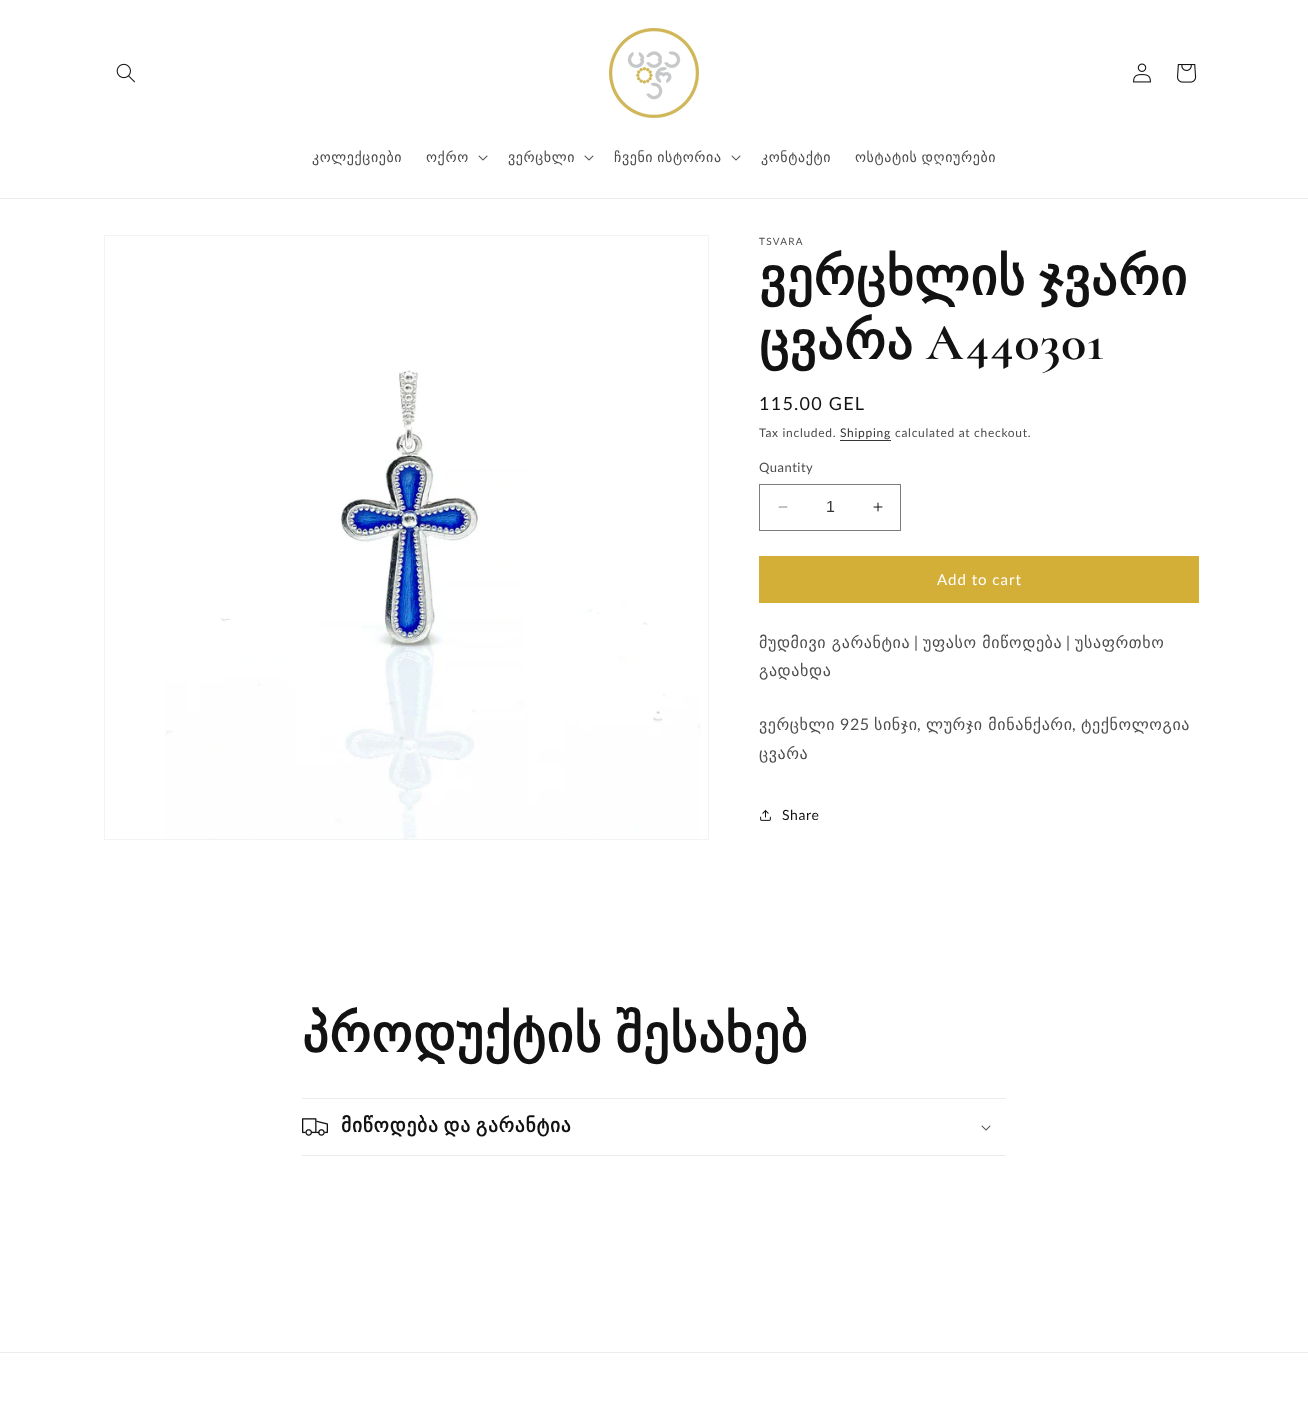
async function draw(canvas) {
  canvas.width = 1308;
  canvas.height = 1409;
  const ctx = canvas.getContext('2d');
  ctx.miterLimit = 4;
  ctx.fontKerning = 'normal';
  function label(s, x, y, font, color) {
    ctx.font = font;
    ctx.fillStyle = color;
    ctx.fillText(s, x, y);
  }
  function rect(x, y, w, h, color) {
    ctx.fillStyle = color;
    ctx.fillRect(x, y, w, h);
  }
  async function image(src, x, y, w, h) {
    const img = new Image();
    img.src = src;
    await img.decode();
    ctx.drawImage(img, x, y, w, h);
  }

  rect(0, 0, 1308, 1409, '#fff');
  rect(0, 198, 1308, 1, '#ececec');
  await image('assets/img1.png', 116, 63, 19, 20);
  await image('assets/img2.png', 609, 28, 90, 90);
  await image('assets/img3.png', 1133, 63, 18, 20);
  await image('assets/img4.png', 1177, 64, 20, 19);
  ctx.letterSpacing = '0.6px';
  label('კოლექციები', 312, 162, '14px DejaVu Sans', '#4d4d4d');
  label('ოქრო', 426, 162, '14px DejaVu Sans', '#4d4d4d');
  await image('assets/img5.png', 478, 155, 10, 6);
  label('ვერცხლი', 508, 162, '14px DejaVu Sans', '#4d4d4d');
  await image('assets/img5.png', 584, 155, 10, 6);
  ctx.wordSpacing = '-1px';
  label('ჩვენი ისტორია', 614, 162, '14px DejaVu Sans', '#4d4d4d');
  await image('assets/img5.png', 731, 155, 10, 6);
  ctx.wordSpacing = '0px';
  label('კონტაქტი', 761, 162, '14px DejaVu Sans', '#4d4d4d');
  ctx.wordSpacing = '-1px';
  label('ოსტატის დღიურები', 855, 162, '14px DejaVu Sans', '#4d4d4d');
  ctx.strokeStyle = '#f3f3f3';
  ctx.strokeRect(104.5, 235.5, 604, 604);
  await image('assets/img6.png', 164, 370, 537, 469);
  ctx.letterSpacing = '1.25px';
  ctx.wordSpacing = '0px';
  label('TSVARA', 759, 245, '10px Lato', '#4d4d4d');
  ctx.letterSpacing = '0.75px';
  ctx.wordSpacing = '-4px';
  label('ვერცხლის ჯვარი', 759, 295, 'bold 52px DejaVu Sans', '#121212');
  ctx.wordSpacing = '0px';
  label('ცვარა', 759, 359, 'bold 52px DejaVu Sans', '#121212');
  label('A440301', 926, 359, 'bold 52px Cormorant', '#121212');
  ctx.letterSpacing = '1.25px';
  label('115.00 GEL', 759, 410, '18px Lato', '#121212');
  ctx.letterSpacing = '0.7px';
  label('Tax included.', 759, 437, '12px Lato', '#4d4d4d');
  label('Shipping', 840, 437, '12px Lato', '#363636');
  rect(840, 440, 51, 1, '#363636');
  label('calculated at checkout.', 895, 437, '12px Lato', '#4d4d4d');
  ctx.letterSpacing = '0.5px';
  label('Quantity', 759, 472, '13px Lato', '#4d4d4d');
  await image('assets/img7.png', 778, 506, 10, 2);
  await image('assets/img8.png', 873, 502, 10, 10);
  ctx.strokeStyle = '#7d7d7d';
  ctx.strokeRect(759.5, 484.5, 141, 46);
  ctx.letterSpacing = '0px';
  label('1', 826, 512, '16px Liberation Sans', '#363636');
  rect(759, 556, 440, 47, '#d4af37');
  ctx.letterSpacing = '1px';
  label('Add to cart', 937, 585, '15px Lato', '#fff');
  ctx.letterSpacing = '0.6px';
  label('მუდმივი გარანტია', 759, 648, '16px DejaVu Sans', '#4d4d4d');
  label('|', 914, 648, '16px Lato', '#4d4d4d');
  label('უფასო მიწოდება', 923, 648, '16px DejaVu Sans', '#4d4d4d');
  label('|', 1066, 648, '16px Lato', '#4d4d4d');
  label('უსაფრთხო', 1075, 648, '16px DejaVu Sans', '#4d4d4d');
  label('გადახდა', 759, 676, '16px DejaVu Sans', '#4d4d4d');
  label('ვერცხლი', 759, 730, '16px DejaVu Sans', '#4d4d4d');
  label('925', 840, 730, '16px Lato', '#4d4d4d');
  label('სინჯი', 874, 730, '16px DejaVu Sans', '#4d4d4d');
  label(',', 917, 730, '16px Lato', '#4d4d4d');
  label('ლურჯი მინანქარი', 926, 730, '16px DejaVu Sans', '#4d4d4d');
  label(',', 1072, 730, '16px Lato', '#4d4d4d');
  label('ტექნოლოგია', 1081, 730, '16px DejaVu Sans', '#4d4d4d');
  label('ცვარა', 759, 759, '16px DejaVu Sans', '#4d4d4d');
  await image('assets/img9.png', 760, 810, 11, 11);
  label('Share', 782, 820, '14px Lato', '#121212');
  ctx.letterSpacing = '0.75px';
  ctx.wordSpacing = '-4px';
  label('პროდუქტის შესახებ', 302, 1052, 'bold 52px DejaVu Sans', '#121212');
  rect(302, 1098, 704, 1, '#ececec');
  rect(302, 1155, 704, 1, '#ececec');
  await image('assets/img10.png', 302, 1118, 26, 18);
  ctx.wordSpacing = '-2px';
  label('მიწოდება და გარანტია', 341, 1132, 'bold 19.5px DejaVu Sans', '#121212');
  await image('assets/img5.png', 981, 1125, 10, 6);
  rect(0, 1352, 1308, 1, '#ececec');
}

draw(document.querySelector('canvas'));
